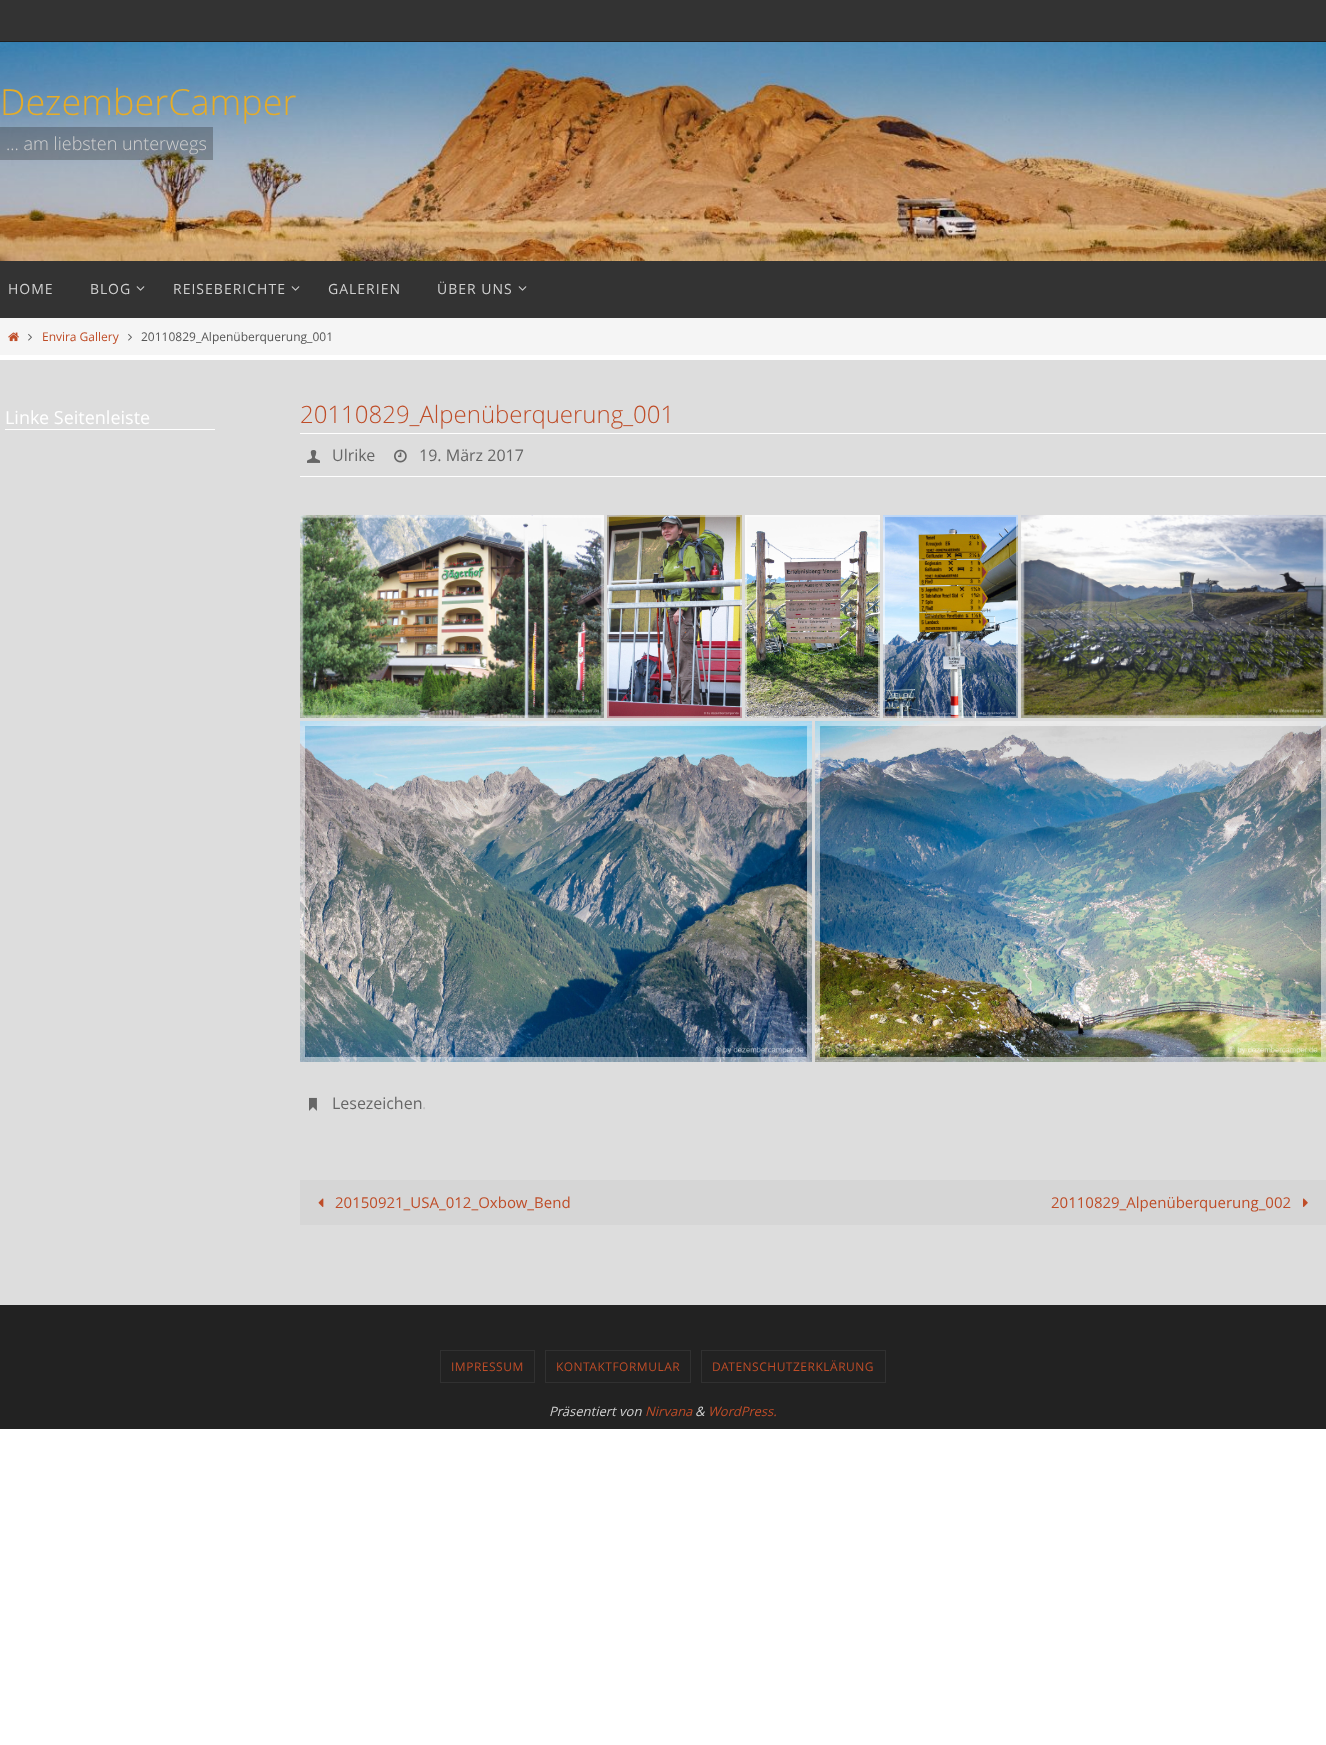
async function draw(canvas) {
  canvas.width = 1326;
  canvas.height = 1745;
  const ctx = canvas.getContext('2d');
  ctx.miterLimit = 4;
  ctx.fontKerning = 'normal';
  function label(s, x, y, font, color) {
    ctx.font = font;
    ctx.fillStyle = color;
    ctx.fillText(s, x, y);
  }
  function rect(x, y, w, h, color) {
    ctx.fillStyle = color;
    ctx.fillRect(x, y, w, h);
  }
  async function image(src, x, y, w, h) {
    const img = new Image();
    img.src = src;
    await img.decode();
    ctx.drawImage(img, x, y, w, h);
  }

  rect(0, 0, 1326, 1745, '#fff');
  rect(0, 0, 1326, 41, '#333');
  rect(0, 41, 1326, 1, '#1f1f1f');
  await image('assets/img1.png', 0, 42, 1326, 219);
  label('DezemberCamper', 0, 115, '300 36px Open Sans', '#e6ac27');
  rect(0, 127, 213, 33, '#2222224d');
  label('... am liebsten unterwegs', 6, 150, '300 18px Open Sans', '#d0d0d0');
  rect(0, 261, 1326, 57, '#333');
  ctx.letterSpacing = '1px';
  label('HOME', 8, 294, '14px Open Sans', '#d0d0d0');
  label('BLOG', 90, 294, '14px Open Sans', '#d0d0d0');
  await image('assets/img2.png', 136, 286, 9, 5);
  label('REISEBERICHTE', 173, 294, '14px Open Sans', '#d0d0d0');
  await image('assets/img2.png', 291, 286, 9, 5);
  label('GALERIEN', 328, 294, '14px Open Sans', '#d0d0d0');
  label('ÜBER UNS', 437, 294, '14px Open Sans', '#d0d0d0');
  await image('assets/img2.png', 518, 286, 9, 5);
  rect(0, 318, 1326, 37, '#f5f5f5');
  await image('assets/img3.png', 8, 332, 11, 10);
  await image('assets/img4.png', 28, 333, 4, 8);
  ctx.letterSpacing = '0px';
  label('Envira Gallery', 42, 341, '12px Open Sans', '#bf4d28');
  await image('assets/img4.png', 128, 333, 4, 8);
  label('20110829_Alpenüberquerung_001', 141, 341, '12px Open Sans', '#555');
  rect(0, 360, 1326, 945, '#ddd');
  rect(5, 429, 210, 1, '#fff');
  label('Linke Seitenleiste', 5, 424, '18px Open Sans', '#fff');
  label('20110829_Alpenüberquerung_001', 300, 423, '300 24px Open Sans', '#bf4d28');
  rect(300, 433, 1026, 1, '#fff');
  rect(300, 476, 1026, 1, '#fff');
  await image('assets/img5.png', 307, 450, 13, 13);
  label('Ulrike', 332, 461, '16px Open Sans', '#666');
  await image('assets/img6.png', 394, 449, 13, 14);
  label('19. März 2017', 419, 461, '16px Open Sans', '#666');
  await image('assets/img7.png', 300, 515, 304, 203);
  await image('assets/img8.png', 607, 515, 135, 203);
  await image('assets/img9.png', 745, 515, 135, 203);
  await image('assets/img10.png', 883, 515, 135, 203);
  await image('assets/img11.png', 1021, 515, 305, 203);
  await image('assets/img12.png', 300, 721, 512, 341);
  await image('assets/img13.png', 815, 721, 511, 341);
  await image('assets/img14.png', 309, 1097, 8, 14);
  label('Lesezeichen', 332, 1109, '16px Open Sans', '#666');
  label('.', 422, 1109, '16px Open Sans', '#c1c1c1');
  rect(300, 1180, 1026, 45, '#d6d6d6');
  await image('assets/img15.png', 318, 1198, 6, 9);
  label('20150921_USA_012_Oxbow_Bend', 335, 1208, '15px Open Sans', '#bf4d28');
  label('20110829_Alpenüberquerung_002', 1051, 1208, '15px Open Sans', '#bf4d28');
  await image('assets/img16.png', 1303, 1198, 5, 9);
  rect(0, 1305, 1326, 124, '#222');
  ctx.strokeStyle = '#313131';
  ctx.strokeRect(440.5, 1350.5, 94, 32);
  ctx.letterSpacing = '0.5px';
  label('IMPRESSUM', 451, 1371, '12px Open Sans', '#bf4d28');
  ctx.strokeRect(545.5, 1350.5, 145, 32);
  label('KONTAKTFORMULAR', 556, 1371, '12px Open Sans', '#bf4d28');
  ctx.strokeRect(701.5, 1350.5, 184, 32);
  label('DATENSCHUTZERKLÄRUNG', 712, 1371, '12px Open Sans', '#bf4d28');
  ctx.letterSpacing = '0px';
  label('Präsentiert von', 549, 1416, 'italic 13px Open Sans', '#d0d0d0');
  label('Nirvana', 645, 1416, 'italic 13px Open Sans', '#bf4d28');
  label('&', 695, 1416, 'italic 13px Open Sans', '#d0d0d0');
  label('WordPress.', 708, 1416, 'italic 13px Open Sans', '#bf4d28');
}

draw(document.querySelector('canvas'));
